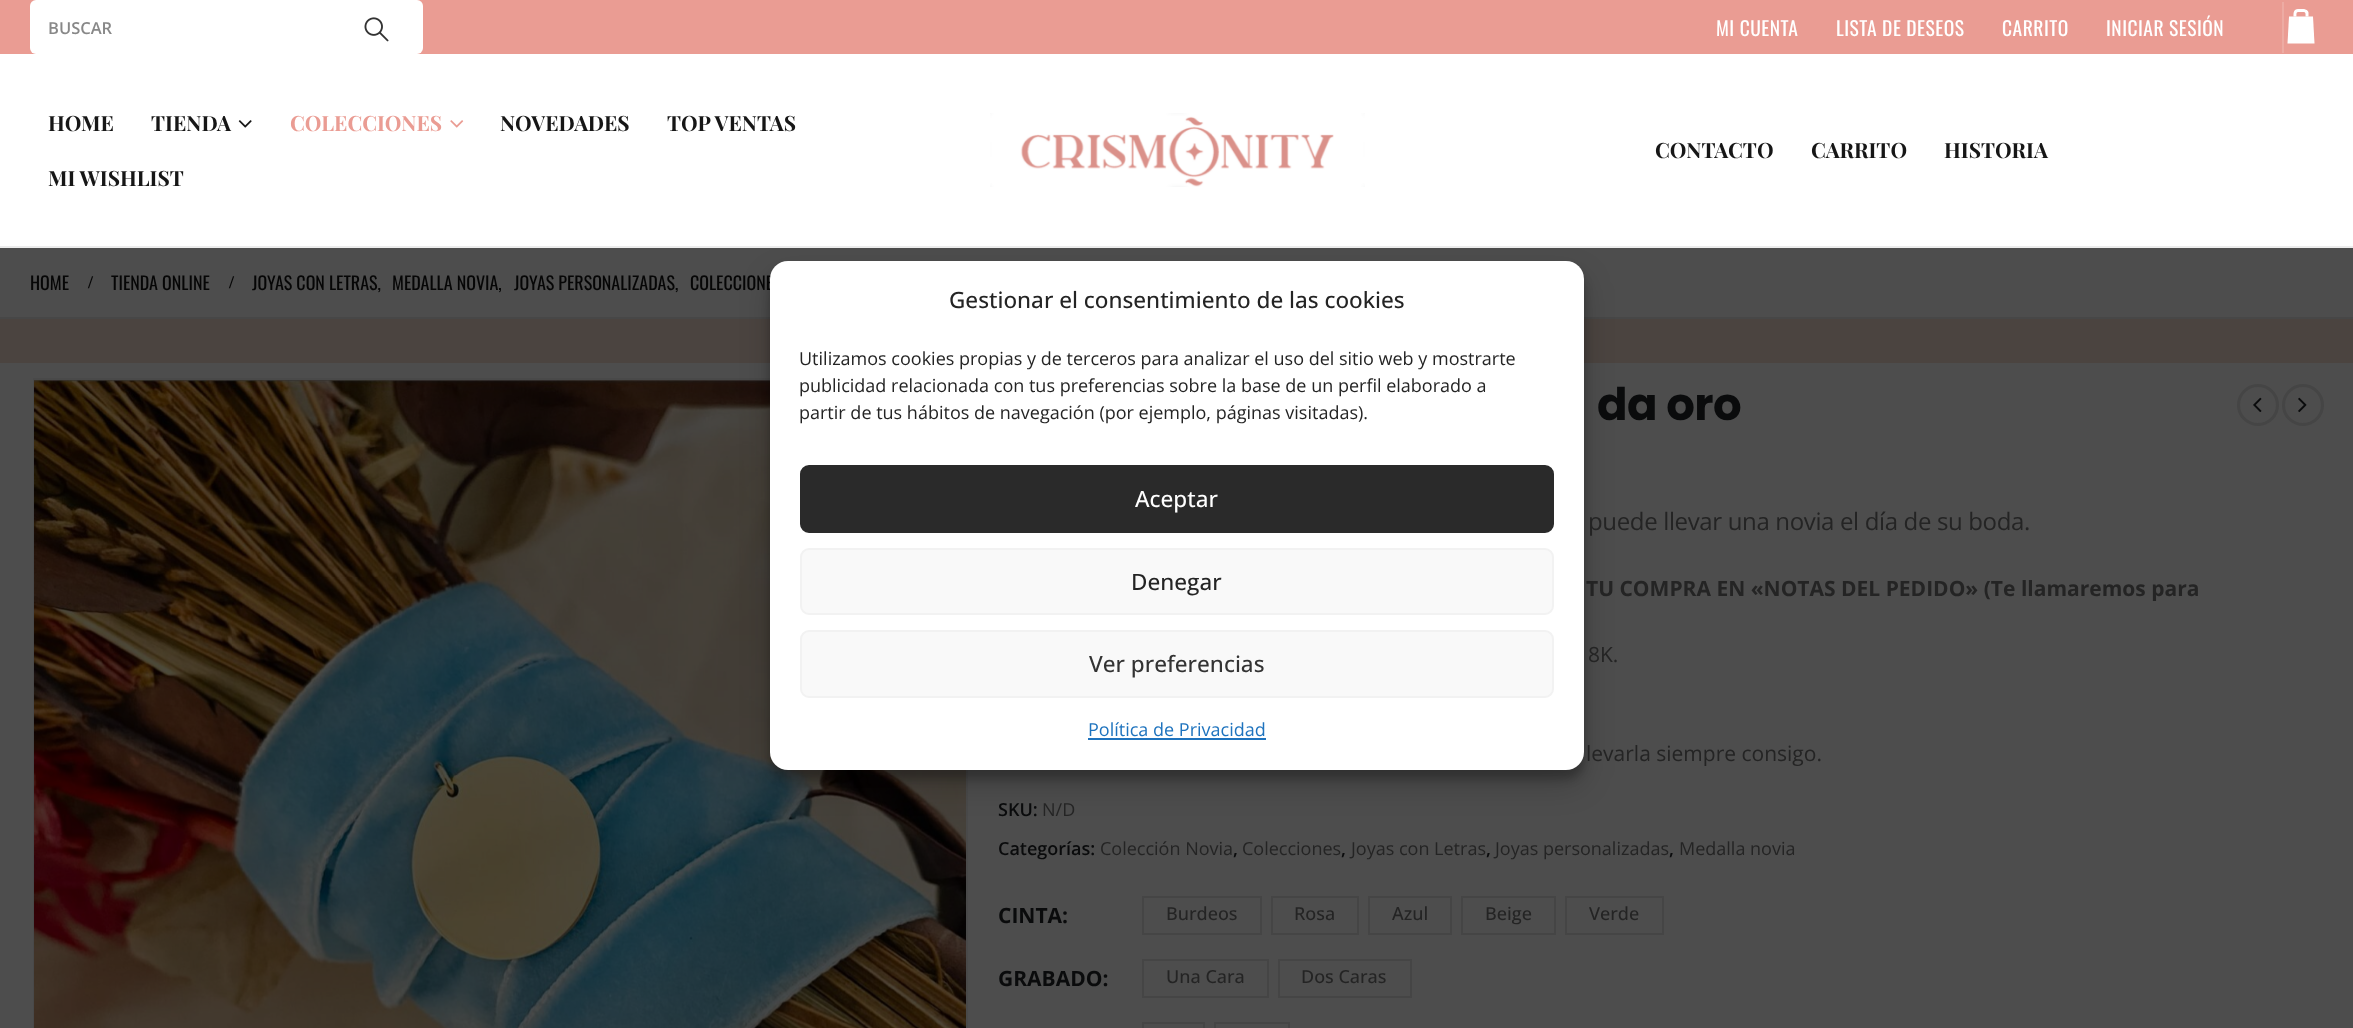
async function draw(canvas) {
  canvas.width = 2353;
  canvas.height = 1028;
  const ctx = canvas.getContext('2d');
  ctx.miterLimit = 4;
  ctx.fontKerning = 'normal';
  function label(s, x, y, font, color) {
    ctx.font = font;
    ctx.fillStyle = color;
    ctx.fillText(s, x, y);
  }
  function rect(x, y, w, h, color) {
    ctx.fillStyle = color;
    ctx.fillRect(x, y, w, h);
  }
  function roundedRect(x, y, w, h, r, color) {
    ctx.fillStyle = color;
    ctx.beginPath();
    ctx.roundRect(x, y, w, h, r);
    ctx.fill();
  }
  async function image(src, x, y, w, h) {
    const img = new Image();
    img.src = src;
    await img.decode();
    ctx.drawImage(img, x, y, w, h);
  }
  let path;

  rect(0, 0, 2353, 1028, '#4b4440');
  rect(0, 0, 2353, 54, '#ea9c93');
  roundedRect(30, 0, 393, 54, 6, '#fff');
  label('BUSCAR', 48, 34, '600 16.5px Open Sans', '#888');
  await image('assets/img1.png', 364, 17, 25, 25);
  ctx.letterSpacing = '0.5px';
  label('MI CUENTA', 1716, 36, '19.5px Oswald', '#fff');
  label('LISTA DE DESEOS', 1836, 36, '19.5px Oswald', '#fff');
  label('CARRITO', 2002, 36, '19.5px Oswald', '#fff');
  label('INICIAR SESIÓN', 2106, 36, '19.5px Oswald', '#fff');
  rect(2282, 2, 2, 51, '#edaba3');
  ctx.fillStyle = '#fff';
  path = new Path2D('M2314.5 43.5H2287.5L2289 16.5H2313Z');
  ctx.fill(path);
  path = new Path2D('M2298 9C2301.5 9 2307.5 8 2308.5 12.5V16.5H2293.5C2293.5 13 2293.5 9 2298 9ZM2298 12H2303C2306 12 2305.5 13.5 2305.5 16.5H2296.5C2296.5 15 2296 12 2298 12Z');
  ctx.fill(path, 'evenodd');
  rect(0, 248, 2353, 69, '#4d4d4d');
  rect(0, 317, 2353, 2, '#474747');
  rect(0, 363, 2353, 665, '#4d4d4d');
  ctx.strokeStyle = '#494949';
  ctx.lineWidth = 2;
  ctx.strokeRect(34, 379, 933, 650);
  await image('assets/img5.png', 34, 380, 932, 648);
  ctx.fillStyle = '#00000030';
  ctx.filter = 'blur(15px)';
  ctx.beginPath();
  ctx.roundRect(770, 276, 814, 509, 18);
  ctx.fill();
  ctx.filter = 'none';
  rect(0, 54, 2353, 192, '#fff');
  rect(0, 246, 2353, 2, '#ececec');
  ctx.letterSpacing = '0px';
  label('HOME', 48, 131, 'bold 21px Playfair Display SC', '#161616');
  label('TIENDA', 151, 131, 'bold 21px Playfair Display SC', '#161616');
  await image('assets/img2.png', 238, 120, 14, 8);
  label('COLECCIONES', 290, 131, 'bold 21px Playfair Display SC', '#ea9c93');
  await image('assets/img3.png', 450, 120, 14, 8);
  label('NOVEDADES', 500, 131, 'bold 21px Playfair Display SC', '#161616');
  label('TOP VENTAS', 667, 131, 'bold 21px Playfair Display SC', '#161616');
  label('MI WISHLIST', 48, 186, 'bold 21px Playfair Display SC', '#161616');
  await image('assets/img4.png', 990, 113, 375, 74);
  label('CONTACTO', 1655, 158, 'bold 21px Playfair Display SC', '#161616');
  label('CARRITO', 1811, 158, 'bold 21px Playfair Display SC', '#161616');
  label('HISTORIA', 1944, 158, 'bold 21px Playfair Display SC', '#161616');
  label('HOME', 30, 290, '18px Oswald', '#060606');
  label('/', 88, 288, 'bold 18px Liberation Serif', '#060606');
  label('TIENDA ONLINE', 111, 290, '18px Oswald', '#060606');
  label('/', 229, 288, 'bold 18px Liberation Serif', '#060606');
  label('JOYAS CON LETRAS,', 252, 290, '18px Oswald', '#060606');
  label('MEDALLA NOVIA,', 392, 290, '18px Oswald', '#060606');
  label('JOYAS PERSONALIZADAS,', 514, 290, '18px Oswald', '#060606');
  label('COLECCIONE', 690, 290, '18px Oswald', '#060606');
  ctx.letterSpacing = '-0.5px';
  label('da oro', 1597, 420, 'bold 45px Poppins', '#0a0b0c');
  ctx.beginPath();
  ctx.arc(2258, 405, 19.5, 0, 2 * Math.PI);
  ctx.strokeStyle = '#454545';
  ctx.lineWidth = 3;
  ctx.stroke();
  await image('assets/img6.png', 2253, 397, 9, 15);
  ctx.beginPath();
  ctx.arc(2303, 405, 19.5, 0, 2 * Math.PI);
  ctx.stroke();
  await image('assets/img7.png', 2298, 397, 9, 16);
  ctx.letterSpacing = '-0.35px';
  label('puede llevar una novia el día de su boda.', 1588, 530, '24px Open Sans', '#242424');
  ctx.letterSpacing = '0px';
  label('TU COMPRA EN «NOTAS DEL PEDIDO» (Te llamaremos para', 1586, 596, 'bold 21px Open Sans', '#242424');
  label('8K.', 1588, 662, '21px Open Sans', '#242424');
  label('levarla siempre consigo.', 1586, 761, '21px Open Sans', '#242424');
  label('SKU:', 998, 816, '600 18px Open Sans', '#0a0b0c');
  label('N/D', 1042, 816, '18px Open Sans', '#242424');
  label('Categorías:', 998, 855, '600 18px Open Sans', '#0a0b0c');
  label('Colección Novia', 1100, 855, '18px Open Sans', '#242424');
  label(',', 1233, 855, '600 18px Open Sans', '#0a0b0c');
  label('Colecciones', 1242, 855, '18px Open Sans', '#242424');
  label(',', 1341, 855, '600 18px Open Sans', '#0a0b0c');
  label('Joyas con Letras', 1351, 855, '18px Open Sans', '#242424');
  label(',', 1486, 855, '600 18px Open Sans', '#0a0b0c');
  label('Joyas personalizadas', 1495, 855, '18px Open Sans', '#242424');
  label(',', 1669, 855, '600 18px Open Sans', '#0a0b0c');
  label('Medalla novia', 1679, 855, '18px Open Sans', '#242424');
  label('CINTA:', 998, 923, 'bold 21px Open Sans', '#0a0b0c');
  ctx.lineWidth = 2;
  ctx.strokeRect(1143, 897, 118, 37);
  label('Burdeos', 1166, 920, '500 18px Open Sans', '#242424');
  ctx.strokeRect(1272, 897, 86, 37);
  label('Rosa', 1294, 920, '500 18px Open Sans', '#242424');
  ctx.strokeRect(1369, 897, 82, 37);
  label('Azul', 1392, 920, '500 18px Open Sans', '#242424');
  ctx.strokeRect(1462, 897, 93, 37);
  label('Beige', 1485, 920, '500 18px Open Sans', '#242424');
  ctx.strokeRect(1566, 897, 97, 37);
  label('Verde', 1589, 920, '500 18px Open Sans', '#242424');
  label('GRABADO:', 998, 986, 'bold 21px Open Sans', '#0a0b0c');
  ctx.strokeRect(1143, 960, 125, 37);
  label('Una Cara', 1166, 983, '500 18px Open Sans', '#242424');
  ctx.strokeRect(1279, 960, 132, 37);
  label('Dos Caras', 1301, 983, '500 18px Open Sans', '#242424');
  ctx.strokeRect(1143, 1023, 61, 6);
  ctx.strokeRect(1215, 1023, 74, 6);
  ctx.fillStyle = '#0000003b';
  ctx.filter = 'blur(4.5px)';
  ctx.beginPath();
  ctx.roundRect(770, 270, 814, 509, 18);
  ctx.fill();
  ctx.filter = 'none';
  roundedRect(770, 261, 814, 509, 18, '#fff');
  label('Gestionar el consentimiento de las cookies', 949, 308, '500 22.5px Open Sans', '#242424');
  label('Utilizamos cookies propias y de terceros para analizar el uso del sitio web y mostrarte', 799, 365, '18px Open Sans', '#242424');
  label('publicidad relacionada con tus preferencias sobre la base de un perfil elaborado a', 799, 392, '18px Open Sans', '#242424');
  label('partir de tus hábitos de navegación (por ejemplo, páginas visitadas).', 799, 419, '18px Open Sans', '#242424');
  ctx.fillStyle = '#2a2a2a';
  ctx.beginPath();
  ctx.roundRect(801, 466, 752, 66, 8);
  ctx.fill();
  ctx.strokeStyle = '#2a2a2a';
  ctx.stroke();
  label('Aceptar', 1135, 507, '500 22.5px Open Sans', '#fff');
  ctx.fillStyle = '#f9f9f9';
  ctx.beginPath();
  ctx.roundRect(801, 549, 752, 65, 8);
  ctx.fill();
  ctx.strokeStyle = '#f2f2f2';
  ctx.stroke();
  label('Denegar', 1131, 590, '500 22.5px Open Sans', '#242424');
  ctx.fillStyle = '#f9f9f9';
  ctx.beginPath();
  ctx.roundRect(801, 631, 752, 66, 8);
  ctx.fill();
  ctx.stroke();
  label('Ver preferencias', 1089, 672, '500 22.5px Open Sans', '#333');
  label('Política de Privacidad', 1088, 736, '18px Open Sans', '#1e73be');
  rect(1088, 738, 178, 2, '#1e73be');
}

draw(document.querySelector('canvas'));
